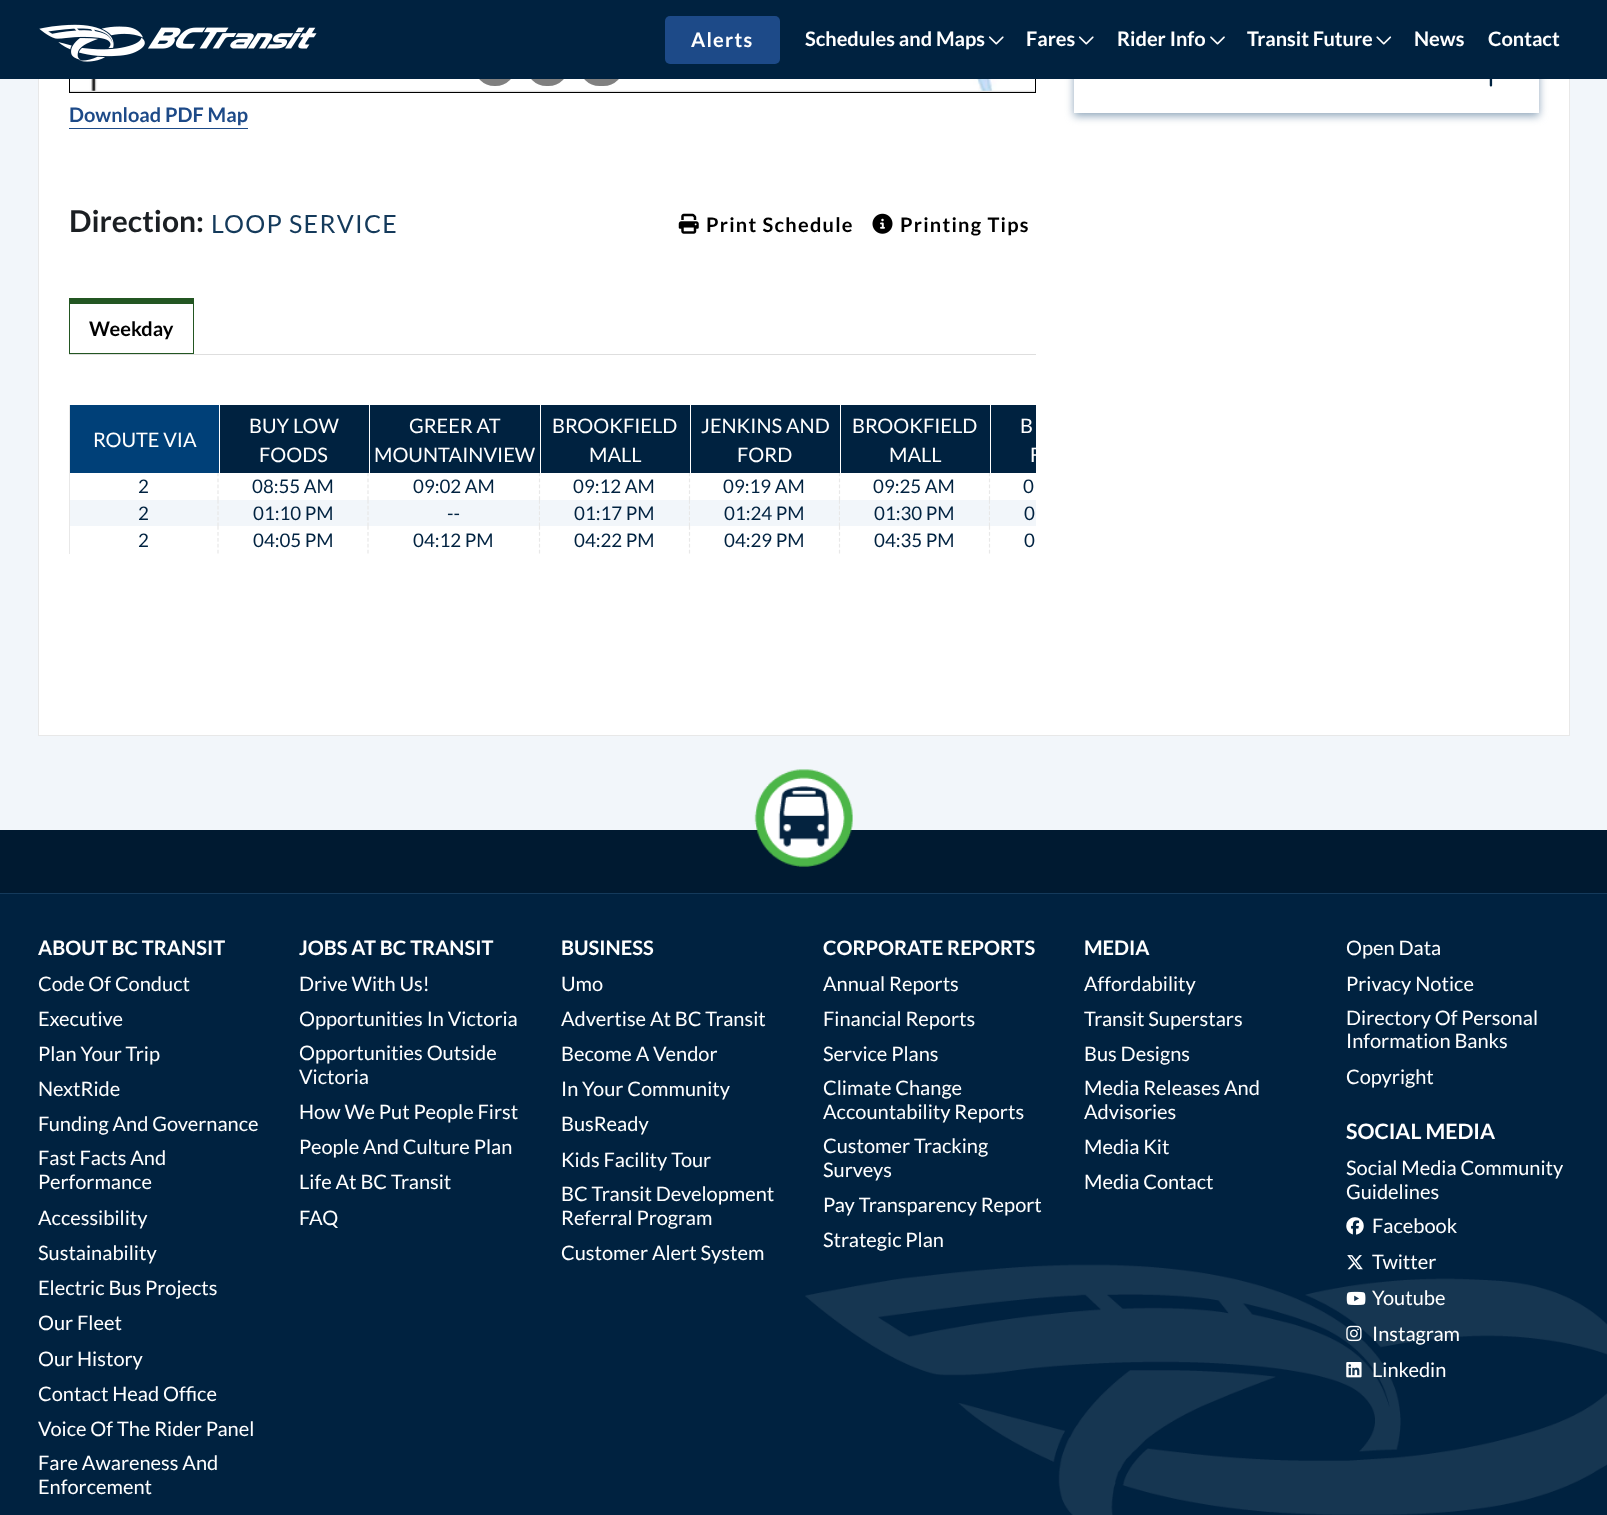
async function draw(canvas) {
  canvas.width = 1607;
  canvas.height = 1515;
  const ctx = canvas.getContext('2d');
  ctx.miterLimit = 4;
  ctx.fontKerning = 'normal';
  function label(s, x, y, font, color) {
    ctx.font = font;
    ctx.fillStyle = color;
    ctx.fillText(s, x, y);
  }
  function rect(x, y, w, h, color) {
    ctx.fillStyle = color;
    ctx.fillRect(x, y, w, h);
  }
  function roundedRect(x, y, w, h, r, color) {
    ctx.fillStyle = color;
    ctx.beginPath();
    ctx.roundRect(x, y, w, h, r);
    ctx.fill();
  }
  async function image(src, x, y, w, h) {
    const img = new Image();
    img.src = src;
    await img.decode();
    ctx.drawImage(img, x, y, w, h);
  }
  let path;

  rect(0, 0, 1607, 1515, '#f2f6fa');
  ctx.fillStyle = '#e8e8e8';
  path = new Path2D('M1570-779V736L1569 735V-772Z');
  ctx.fill(path);
  rect(38, 735, 1532, 1, '#e8e8e8');
  path = new Path2D('M38 736V-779L39-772V735Z');
  ctx.fill(path);
  rect(39, 79, 1530, 656, '#fff');
  ctx.fillStyle = '#8ea5ba';
  ctx.filter = 'blur(4px)';
  ctx.beginPath();
  ctx.rect(1074, -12, 465, 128);
  ctx.fill();
  ctx.filter = 'none';
  rect(70, 90, 965, 2, '#dedede');
  ctx.strokeStyle = '#000';
  ctx.strokeRect(69.5, -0.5, 966, 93);
  await image('assets/img6.png', 70, 79, 965, 12);
  roundedRect(474, 45, 42, 41, 20.5, '#808080');
  roundedRect(526, 45, 43, 41, 20.5, '#808080');
  roundedRect(579, 45, 45, 41, 20.5, '#808080');
  rect(0, 0, 1607, 79, '#002240');
  await image('assets/img1.png', 39, 24, 278, 38);
  roundedRect(665, 16, 115, 48, 5, '#1d4a88');
  ctx.letterSpacing = '1.25px';
  label('Alerts', 691, 47, 'bold 20px Lato', '#fff');
  ctx.letterSpacing = '0px';
  label('Schedules and Maps', 805, 46, 'bold 20px Lato', '#fff');
  await image('assets/img2.png', 988, 36, 16, 9);
  label('Fares', 1026, 46, 'bold 20px Lato', '#fff');
  await image('assets/img2.png', 1078, 36, 16, 9);
  label('Rider Info', 1117, 46, 'bold 20px Lato', '#fff');
  await image('assets/img3.png', 1210, 36, 15, 9);
  label('Transit Future', 1247, 46, 'bold 20px Lato', '#fff');
  await image('assets/img4.png', 1376, 36, 16, 9);
  label('News', 1414, 46, 'bold 20px Lato', '#fff');
  label('Contact', 1488, 46, 'bold 20px Lato', '#fff');
  rect(1074, 79, 465, 34, '#fff');
  await image('assets/img5.png', 1489, 79, 4, 8);
  label('Download PDF Map', 69, 122, 'bold 20px Lato', '#1d4a88');
  rect(69, 128, 179, 1, '#1d4a88');
  label('Direction:', 69, 232, 'bold 30px Lato', '#1b1f23');
  ctx.letterSpacing = '1.25px';
  label('LOOP SERVICE', 211, 233, '25px Lato', '#143a5b');
  await image('assets/img7.png', 678, 213, 21, 21);
  label('Print Schedule', 706, 232, 'bold 20px Lato', '#000');
  await image('assets/img8.png', 872, 213, 21, 21);
  label('Printing Tips', 900, 232, 'bold 20px Lato', '#000');
  rect(69, 354, 967, 1, '#dedede');
  rect(69, 298, 125, 6, '#235622');
  rect(193, 298, 1, 56, '#235622');
  rect(69, 353, 125, 1, '#235622');
  rect(69, 298, 1, 56, '#235622');
  ctx.letterSpacing = '0px';
  label('Weekday', 89, 336, 'bold 20px Lato', '#000');
  path = new Path2D('M218 472.5V500');
  ctx.strokeStyle = '#e8e8e8';
  ctx.lineWidth = 1.2;
  ctx.setLineDash([3.75, 2.19]);
  ctx.stroke(path);
  rect(70, 405, 149, 68, '#004078');
  label('ROUTE VIA', 93, 447, '20px Lato', '#fff');
  path = new Path2D('M368 472.5V500');
  ctx.stroke(path);
  rect(220, 405, 149, 68, '#002240');
  label('BUY LOW', 249, 433, '20px Lato', '#fff');
  label('FOODS', 259, 462, '20px Lato', '#fff');
  path = new Path2D('M539.5 472.5V500');
  ctx.stroke(path);
  rect(370, 405, 170, 68, '#002240');
  label('GREER AT', 409, 433, '20px Lato', '#fff');
  label('MOUNTAINVIEW', 374, 462, '20px Lato', '#fff');
  path = new Path2D('M689.5 472.5V500');
  ctx.stroke(path);
  rect(541, 405, 149, 68, '#002240');
  label('BROOKFIELD', 552, 433, '20px Lato', '#fff');
  label('MALL', 589, 462, '20px Lato', '#fff');
  path = new Path2D('M839.5 472.5V500');
  ctx.stroke(path);
  rect(691, 405, 149, 68, '#002240');
  label('JENKINS AND', 701, 433, '20px Lato', '#fff');
  label('FORD', 737, 462, '20px Lato', '#fff');
  path = new Path2D('M989.5 472.5V500');
  ctx.stroke(path);
  rect(841, 405, 149, 68, '#002240');
  label('BROOKFIELD', 852, 433, '20px Lato', '#fff');
  label('MALL', 889, 462, '20px Lato', '#fff');
  rect(991, 405, 45, 68, '#002240');
  label('B', 1020, 433, '20px Lato', '#fff');
  ctx.save();
  ctx.beginPath();
  ctx.rect(69, 405, 967, 300);
  ctx.clip();
  label('F', 1030, 462, '20px Lato', '#fff');
  ctx.restore();
  rect(69, 405, 1, 149, '#e8e8e8');
  label('2', 138, 493, '18.75px Lato', '#002240');
  label('08:55 AM', 252, 493, '18.75px Lato', '#002240');
  label('09:02 AM', 413, 493, '18.75px Lato', '#002240');
  label('09:12 AM', 573, 493, '18.75px Lato', '#002240');
  label('09:19 AM', 723, 493, '18.75px Lato', '#002240');
  label('09:25 AM', 873, 493, '18.75px Lato', '#002240');
  label('0', 1023, 493, '18.75px Lato', '#002240');
  rect(70, 500, 470, 26, '#f2f6fa');
  path = new Path2D('M218 500V526');
  ctx.setLineDash([3.75, 1.88]);
  ctx.stroke(path);
  label('2', 138, 520, '18.75px Lato', '#002240');
  path = new Path2D('M368 500V526');
  ctx.stroke(path);
  label('01:10 PM', 253, 520, '18.75px Lato', '#002240');
  path = new Path2D('M539.5 500V526');
  ctx.stroke(path);
  label('--', 447, 520, '18.75px Lato', '#002240');
  rect(540, 500, 150, 26, '#f2f6fa');
  path = new Path2D('M689.5 500V526');
  ctx.stroke(path);
  label('01:17 PM', 574, 520, '18.75px Lato', '#002240');
  rect(690, 500, 150, 26, '#f2f6fa');
  path = new Path2D('M839.5 500V526');
  ctx.stroke(path);
  label('01:24 PM', 724, 520, '18.75px Lato', '#002240');
  rect(840, 500, 150, 26, '#f2f6fa');
  path = new Path2D('M989.5 500V526');
  ctx.stroke(path);
  label('01:30 PM', 874, 520, '18.75px Lato', '#002240');
  rect(990, 500, 46, 26, '#f2f6fa');
  label('0', 1024, 520, '18.75px Lato', '#002240');
  path = new Path2D('M218 526V554');
  ctx.setLineDash([3.75, 2.19]);
  ctx.stroke(path);
  label('2', 138, 547, '18.75px Lato', '#002240');
  path = new Path2D('M368 526V554');
  ctx.stroke(path);
  label('04:05 PM', 253, 547, '18.75px Lato', '#002240');
  path = new Path2D('M539.5 526V554');
  ctx.stroke(path);
  label('04:12 PM', 413, 547, '18.75px Lato', '#002240');
  path = new Path2D('M689.5 526V554');
  ctx.stroke(path);
  label('04:22 PM', 574, 547, '18.75px Lato', '#002240');
  path = new Path2D('M839.5 526V554');
  ctx.stroke(path);
  label('04:29 PM', 724, 547, '18.75px Lato', '#002240');
  path = new Path2D('M989.5 526V554');
  ctx.stroke(path);
  label('04:35 PM', 874, 547, '18.75px Lato', '#002240');
  label('0', 1024, 547, '18.75px Lato', '#002240');
  rect(0, 830, 1607, 63, '#001a31');
  await image('assets/img9.png', 754, 769, 99, 98);
  rect(0, 894, 1607, 621, '#002240');
  await image('assets/img10.png', 805, 1264, 802, 251);
  rect(0, 893, 1607, 1, '#143a5b');
  label('ABOUT BC TRANSIT', 38, 955, 'bold 20px Lato', '#fff');
  label('Code Of Conduct', 38, 991, '20px Lato', '#fff');
  label('Executive', 38, 1026, '20px Lato', '#fff');
  label('Plan Your Trip', 38, 1061, '20px Lato', '#fff');
  label('NextRide', 38, 1096, '20px Lato', '#fff');
  label('Funding And Governance', 38, 1131, '20px Lato', '#fff');
  label('Fast Facts And', 38, 1165, '20px Lato', '#fff');
  label('Performance', 38, 1189, '20px Lato', '#fff');
  label('Accessibility', 38, 1225, '20px Lato', '#fff');
  label('Sustainability', 38, 1260, '20px Lato', '#fff');
  label('Electric Bus Projects', 38, 1295, '20px Lato', '#fff');
  label('Our Fleet', 38, 1330, '20px Lato', '#fff');
  label('Our History', 38, 1366, '20px Lato', '#fff');
  label('Contact Head Office', 38, 1401, '20px Lato', '#fff');
  label('Voice Of The Rider Panel', 38, 1436, '20px Lato', '#fff');
  label('Fare Awareness And', 38, 1470, '20px Lato', '#fff');
  label('Enforcement', 38, 1494, '20px Lato', '#fff');
  label('JOBS AT BC TRANSIT', 299, 955, 'bold 20px Lato', '#fff');
  label('Drive With Us!', 299, 991, '20px Lato', '#fff');
  label('Opportunities In Victoria', 299, 1026, '20px Lato', '#fff');
  label('Opportunities Outside', 299, 1060, '20px Lato', '#fff');
  label('Victoria', 299, 1084, '20px Lato', '#fff');
  label('How We Put People First', 299, 1119, '20px Lato', '#fff');
  label('People And Culture Plan', 299, 1154, '20px Lato', '#fff');
  label('Life At BC Transit', 299, 1189, '20px Lato', '#fff');
  label('FAQ', 299, 1225, '20px Lato', '#fff');
  label('BUSINESS', 561, 955, 'bold 20px Lato', '#fff');
  label('Umo', 561, 991, '20px Lato', '#fff');
  label('Advertise At BC Transit', 561, 1026, '20px Lato', '#fff');
  label('Become A Vendor', 561, 1061, '20px Lato', '#fff');
  label('In Your Community', 561, 1096, '20px Lato', '#fff');
  label('BusReady', 561, 1131, '20px Lato', '#fff');
  label('Kids Facility Tour', 561, 1167, '20px Lato', '#fff');
  label('BC Transit Development', 561, 1201, '20px Lato', '#fff');
  label('Referral Program', 561, 1225, '20px Lato', '#fff');
  label('Customer Alert System', 561, 1260, '20px Lato', '#fff');
  label('CORPORATE REPORTS', 823, 955, 'bold 20px Lato', '#fff');
  label('Annual Reports', 823, 991, '20px Lato', '#fff');
  label('Financial Reports', 823, 1026, '20px Lato', '#fff');
  label('Service Plans', 823, 1061, '20px Lato', '#fff');
  label('Climate Change', 823, 1095, '20px Lato', '#fff');
  label('Accountability Reports', 823, 1119, '20px Lato', '#fff');
  label('Customer Tracking', 823, 1153, '20px Lato', '#fff');
  label('Surveys', 823, 1177, '20px Lato', '#fff');
  label('Pay Transparency Report', 823, 1212, '20px Lato', '#fff');
  label('Strategic Plan', 823, 1247, '20px Lato', '#fff');
  label('MEDIA', 1084, 955, 'bold 20px Lato', '#fff');
  label('Affordability', 1084, 991, '20px Lato', '#fff');
  label('Transit Superstars', 1084, 1026, '20px Lato', '#fff');
  label('Bus Designs', 1084, 1061, '20px Lato', '#fff');
  label('Media Releases And', 1084, 1095, '20px Lato', '#fff');
  label('Advisories', 1084, 1119, '20px Lato', '#fff');
  label('Media Kit', 1084, 1154, '20px Lato', '#fff');
  label('Media Contact', 1084, 1189, '20px Lato', '#fff');
  label('Open Data', 1346, 955, '20px Lato', '#fff');
  label('Privacy Notice', 1346, 991, '20px Lato', '#fff');
  label('Directory Of Personal', 1346, 1025, '20px Lato', '#fff');
  label('Information Banks', 1346, 1048, '20px Lato', '#fff');
  label('Copyright', 1346, 1084, '20px Lato', '#fff');
  label('SOCIAL MEDIA', 1346, 1139, 'bold 21.25px Lato', '#fff');
  label('Social Media Community', 1346, 1175, '20px Lato', '#fff');
  label('Guidelines', 1346, 1199, '20px Lato', '#fff');
  await image('assets/img11.png', 1346, 1217, 18, 18);
  label('Facebook', 1372, 1233, '20px Lato', '#fff');
  await image('assets/img12.png', 1347, 1255, 16, 15);
  label('Twitter', 1372, 1269, '20px Lato', '#fff');
  await image('assets/img13.png', 1346, 1291, 20, 14);
  label('Youtube', 1372, 1305, '20px Lato', '#fff');
  await image('assets/img14.png', 1346, 1325, 16, 17);
  label('Instagram', 1372, 1341, '20px Lato', '#fff');
  await image('assets/img15.png', 1346, 1362, 16, 16);
  label('Linkedin', 1372, 1377, '20px Lato', '#fff');
}

draw(document.querySelector('canvas'));
